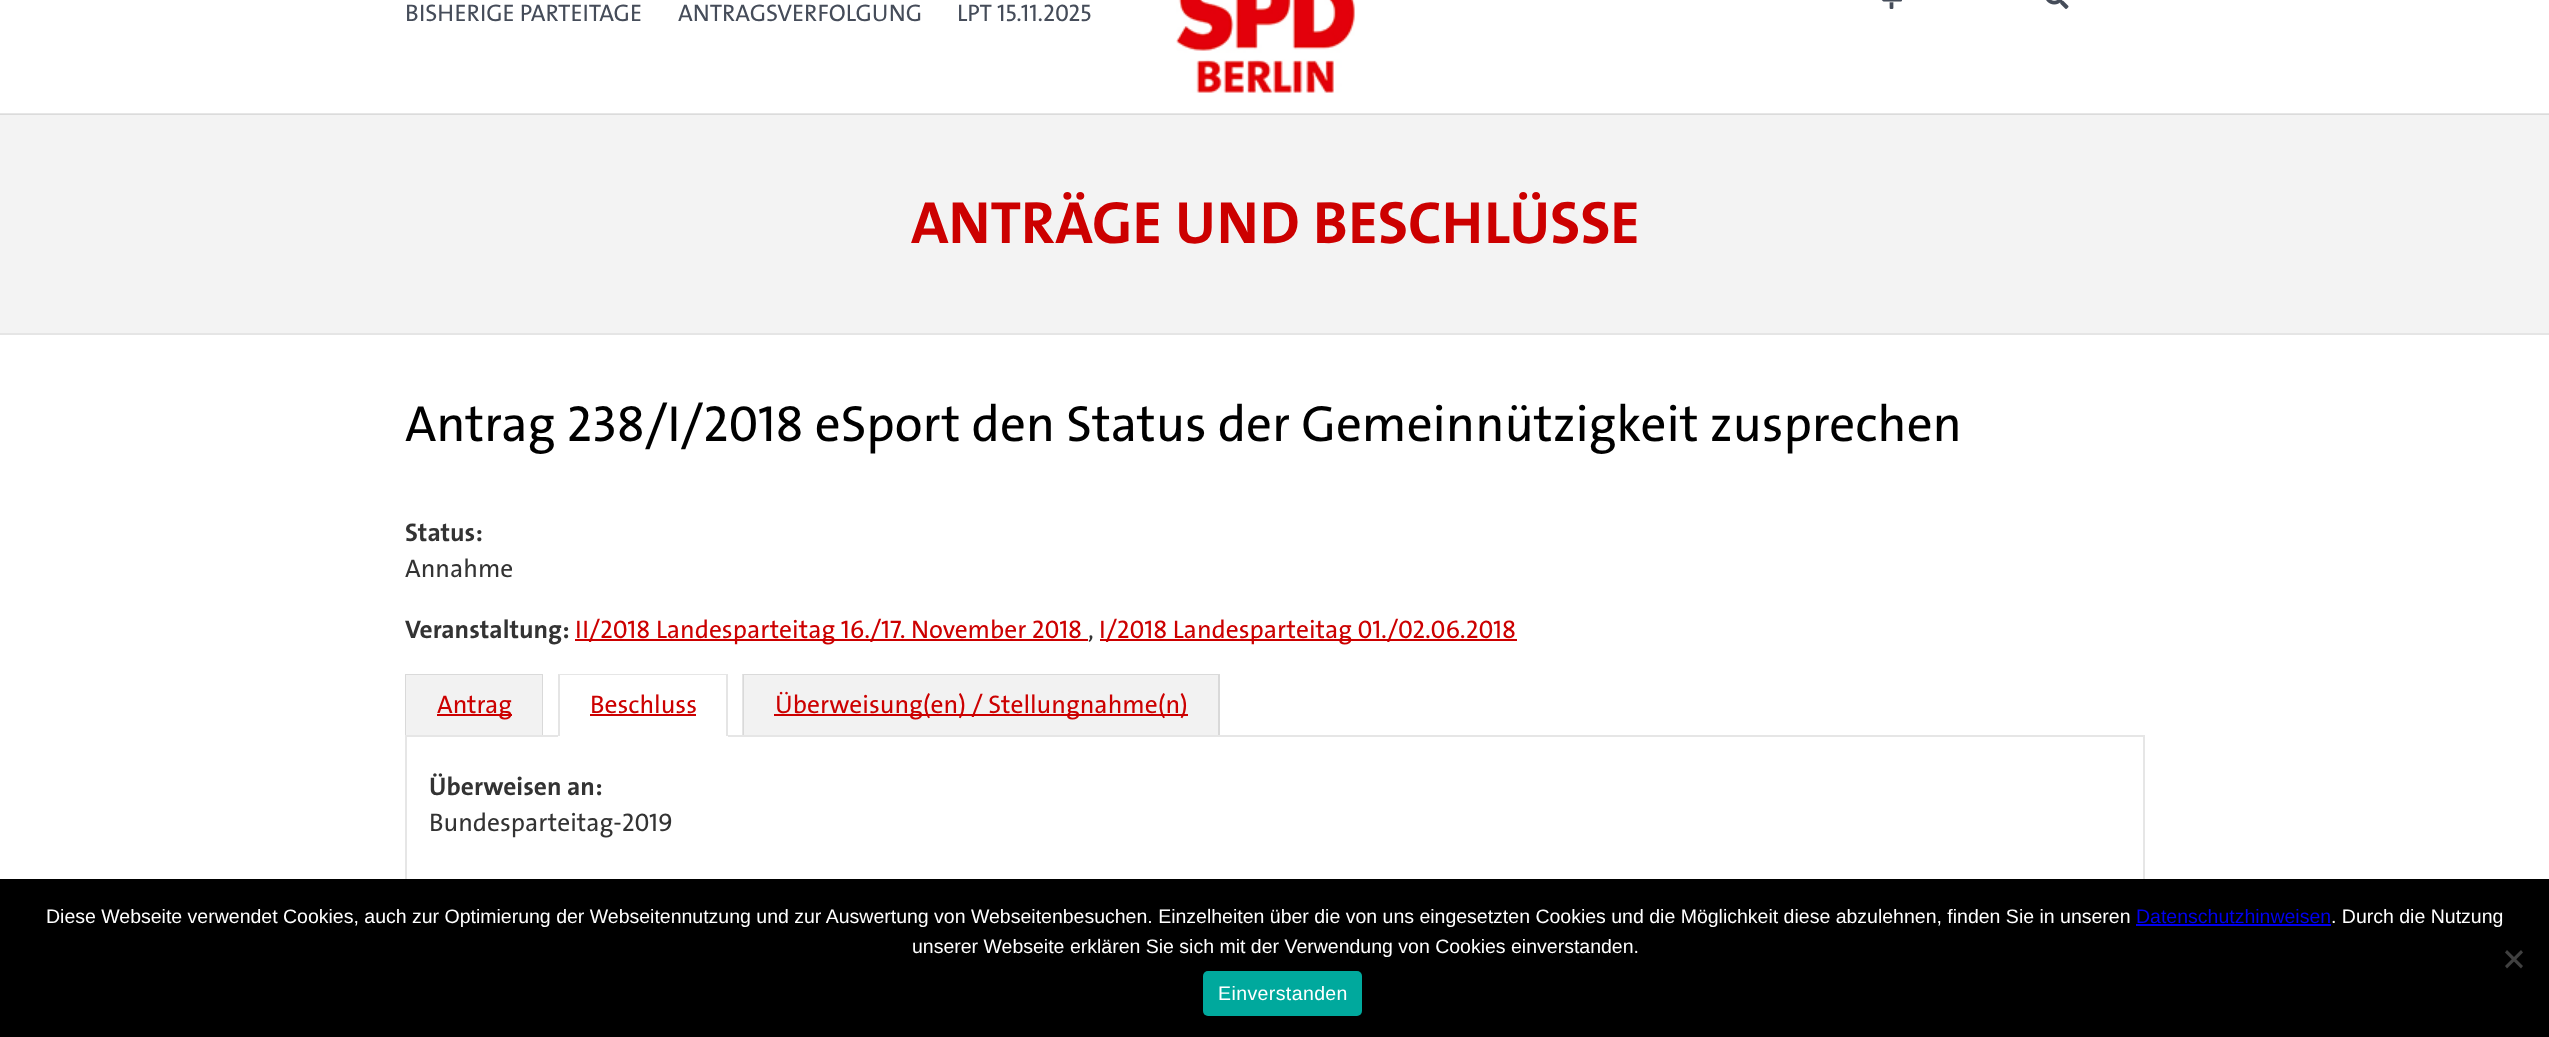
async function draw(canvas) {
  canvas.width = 2549;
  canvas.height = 1037;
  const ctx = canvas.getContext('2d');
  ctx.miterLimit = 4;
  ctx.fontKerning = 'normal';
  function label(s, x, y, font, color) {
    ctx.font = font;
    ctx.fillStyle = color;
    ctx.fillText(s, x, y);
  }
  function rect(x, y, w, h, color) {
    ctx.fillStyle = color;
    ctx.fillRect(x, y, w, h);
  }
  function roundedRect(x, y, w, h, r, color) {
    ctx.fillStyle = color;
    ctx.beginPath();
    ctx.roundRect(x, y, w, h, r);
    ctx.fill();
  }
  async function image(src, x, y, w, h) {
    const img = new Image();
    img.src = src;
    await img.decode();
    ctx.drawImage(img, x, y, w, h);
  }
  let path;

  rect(0, 0, 2549, 1037, '#fff');
  rect(0, 115, 2549, 218, '#f3f3f3');
  rect(0, 114, 2549, 1, '#dbdbdb');
  rect(0, 113, 2549, 1, '#e6e6e6');
  label('BISHERIGE PARTEITAGE', 405, 21, '500 24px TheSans', '#454c59');
  label('ANTRAGSVERFOLGUNG', 678, 21, '500 24px TheSans', '#454c59');
  label('LPT 15.11.2025', 957, 21, '500 24px TheSans', '#454c59');
  await image('assets/img1.png', 1176, 0, 179, 93);
  await image('assets/img2.png', 1881, 0, 21, 9);
  await image('assets/img3.png', 2046, 0, 23, 9);
  label('ANTRÄGE UND BESCHLÜSSE', 911, 243, 'bold 60px TheSans', '#c00');
  rect(0, 333, 2549, 2, '#e5e5e5');
  label('Antrag 238/I/2018 eSport den Status der Gemeinnützigkeit zusprechen', 405, 441, '500 51px TheSans', '#000');
  label('Status:', 405, 541, 'bold 25.5px TheSans', '#333');
  label('Annahme', 405, 577, '500 25.5px TheSans', '#333');
  label('Veranstaltung:', 405, 638, 'bold 25.5px TheSans', '#333');
  rect(575, 639, 513, 2, '#c00');
  label('II/2018 Landesparteitag 16./17. November 2018', 575, 638, '500 25.5px TheSans', '#c00');
  label(',', 1088, 638, '500 25.5px TheSans', '#333');
  rect(1100, 639, 417, 2, '#c00');
  label('I/2018 Landesparteitag 01./02.06.2018', 1099, 638, '500 25.5px TheSans', '#c00');
  rect(405, 674, 138, 61, '#f2f2f2');
  ctx.fillStyle = '#dadada';
  path = new Path2D('M405 674H543L542 675H406Z');
  ctx.fill(path);
  ctx.fillStyle = '#0000001a';
  path = new Path2D('M543 674V735H542V675Z');
  ctx.fill(path);
  path = new Path2D('M405 735V674L406 675V735Z');
  ctx.fill(path);
  rect(437, 714, 75, 2, '#c00');
  label('Antrag', 437, 713, '500 25.5px TheSans', '#c00');
  ctx.strokeStyle = '#e6e6e6';
  ctx.lineWidth = 2;
  ctx.strokeRect(406, 736, 1738, 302);
  rect(558, 735, 170, 2, '#fff');
  ctx.fillStyle = '#e6e6e6';
  path = new Path2D('M558 674H728L726 675H560Z');
  ctx.fill(path);
  ctx.fillStyle = '#0000001a';
  path = new Path2D('M728 674V736H726V675Z');
  ctx.fill(path);
  path = new Path2D('M558 736V674L560 675V736Z');
  ctx.fill(path);
  label('Beschluss', 590, 713, '500 25.5px TheSans', '#c00');
  rect(590, 714, 106, 2, '#c00');
  rect(743, 674, 477, 61, '#f2f2f2');
  ctx.fillStyle = '#dadada';
  path = new Path2D('M742 674H1220L1218 675H744Z');
  ctx.fill(path);
  ctx.fillStyle = '#0000001a';
  path = new Path2D('M1220 674V735H1218V675Z');
  ctx.fill(path);
  path = new Path2D('M742 735V674L744 675V735Z');
  ctx.fill(path);
  rect(774, 714, 414, 2, '#c00');
  label('Überweisung(en) / Stellungnahme(n)', 775, 713, '500 25.5px TheSans', '#c00');
  label('Überweisen an:', 429, 795, 'bold 25.5px TheSans', '#333');
  label('Bundesparteitag-2019', 429, 831, '500 25.5px TheSans', '#333');
  rect(0, 879, 2549, 158, '#000');
  label('Diese Webseite verwendet Cookies, auch zur Optimierung der Webseitennutzung und zur Auswertung von Webseitenbesuchen. Einzelheiten über die von uns eingesetzten Cookies und die Möglichkeit diese abzulehnen, finden Sie in unseren', 46, 923, '19.5px Liberation Sans', '#fff');
  label('Datenschutzhinweisen', 2136, 923, '19.5px Liberation Sans', '#00e');
  rect(2136, 924, 195, 2, '#00e');
  label('. Durch die Nutzung', 2331, 923, '19.5px Liberation Sans', '#fff');
  label('unserer Webseite erklären Sie sich mit der Verwendung von Cookies einverstanden.', 912, 953, '19.5px Liberation Sans', '#fff');
  ctx.fillStyle = '#404040';
  path = new Path2D('M2521 950L2523 952.5L2507 968.5L2505 966Z');
  ctx.fill(path);
  path = new Path2D('M2505 952.5L2507 950L2523 966L2521 968.5Z');
  ctx.fill(path);
  roundedRect(1203, 971, 159, 45, 5, '#00a99d');
  ctx.letterSpacing = '0.4px';
  label('Einverstanden', 1218, 1000, '19.5px Liberation Sans', '#fff');
}

draw(document.querySelector('canvas'));
